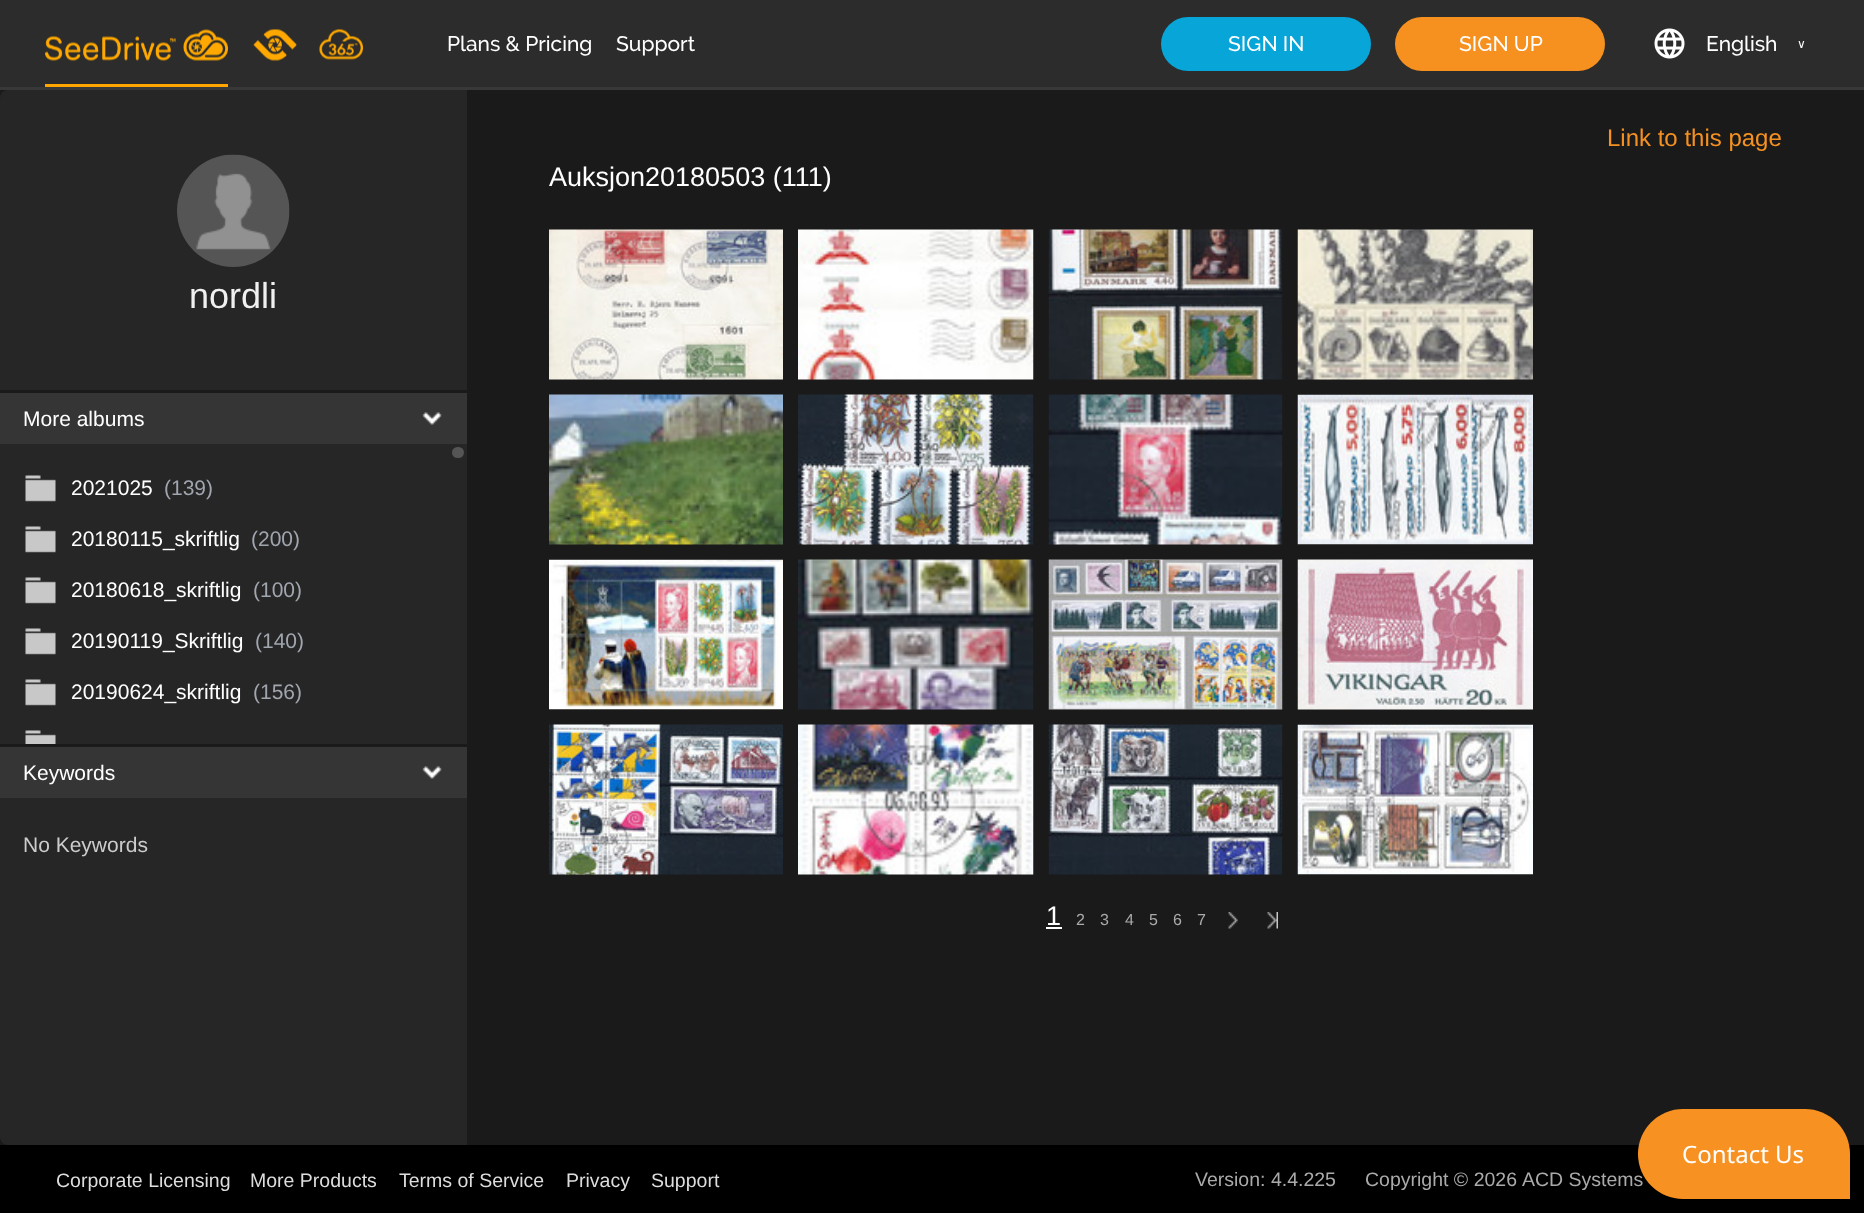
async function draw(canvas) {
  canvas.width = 1864;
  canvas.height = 1213;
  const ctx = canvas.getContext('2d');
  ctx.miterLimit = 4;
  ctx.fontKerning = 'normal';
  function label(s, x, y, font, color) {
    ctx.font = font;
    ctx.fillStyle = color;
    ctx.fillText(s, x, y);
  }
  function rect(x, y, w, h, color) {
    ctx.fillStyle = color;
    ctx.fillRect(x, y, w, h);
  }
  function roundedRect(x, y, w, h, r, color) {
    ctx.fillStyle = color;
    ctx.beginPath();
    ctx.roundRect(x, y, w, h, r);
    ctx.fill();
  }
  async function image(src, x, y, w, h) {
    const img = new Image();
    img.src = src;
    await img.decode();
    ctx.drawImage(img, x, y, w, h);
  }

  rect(0, 0, 1864, 1213, '#1a1a1a');
  rect(0, 0, 1864, 87, '#2c2c2c');
  rect(0, 87, 1864, 3, '#383838');
  rect(45, 84, 183, 3, '#ffa500');
  await image('assets/img1.png', 45, 29, 183, 32);
  await image('assets/img2.png', 253, 28, 44, 33);
  await image('assets/img3.png', 319, 29, 44, 31);
  label('Plans & Pricing', 447, 51, '500 21px Raleway', '#fff');
  label('Support', 616, 51, '500 21px Raleway', '#fff');
  roundedRect(1161, 17, 210, 54, 27, '#07a5d8');
  label('SIGN IN', 1228, 51, '500 21px Raleway', '#fff');
  roundedRect(1395, 17, 210, 54, 27, '#f69120');
  label('SIGN UP', 1459, 51, '500 21px Raleway', '#fff');
  await image('assets/img4.png', 1654, 28, 31, 31);
  label('English', 1706, 51, '500 21px Raleway', '#fff');
  ctx.letterSpacing = '7px';
  label('∨', 1797, 48, '12px DejaVu Sans', '#fff');
  ctx.fillStyle = '#262626';
  ctx.beginPath();
  ctx.roundRect(0, 90, 467, 300, [8, 0, 0, 0]);
  ctx.fill();
  await image('assets/img5.png', 177, 154, 113, 113);
  ctx.letterSpacing = '0px';
  label('nordli', 189, 308, '36px Liberation Sans', '#f0f0f0');
  rect(0, 444, 467, 300, '#262626');
  rect(0, 393, 467, 51, '#353535');
  label('More albums', 23, 426, '21px Liberation Sans', '#fff');
  await image('assets/img6.png', 422, 412, 20, 13);
  roundedRect(452, 447, 12, 11, 5.5, '#555');
  await image('assets/img7.png', 25, 475, 31, 27);
  label('2021025', 71, 495, '21px Liberation Sans', '#fff');
  label('(139)', 164, 495, '21px Liberation Sans', '#a0a5ae');
  await image('assets/img7.png', 25, 526, 31, 27);
  label('20180115_skriftlig', 71, 546, '21px Liberation Sans', '#fff');
  label('(200)', 251, 546, '21px Liberation Sans', '#a0a5ae');
  await image('assets/img7.png', 25, 577, 31, 27);
  label('20180618_skriftlig', 71, 597, '21px Liberation Sans', '#fff');
  label('(100)', 253, 597, '21px Liberation Sans', '#a0a5ae');
  await image('assets/img7.png', 25, 628, 31, 27);
  label('20190119_Skriftlig', 71, 648, '21px Liberation Sans', '#fff');
  label('(140)', 255, 648, '21px Liberation Sans', '#a0a5ae');
  await image('assets/img7.png', 25, 679, 31, 27);
  label('20190624_skriftlig', 71, 699, '21px Liberation Sans', '#fff');
  label('(156)', 253, 699, '21px Liberation Sans', '#a0a5ae');
  await image('assets/img8.png', 25, 730, 31, 14);
  ctx.fillStyle = '#262626';
  ctx.beginPath();
  ctx.roundRect(0, 747, 467, 398, [0, 0, 0, 8]);
  ctx.fill();
  rect(0, 747, 467, 51, '#353535');
  label('Keywords', 23, 780, '21px Liberation Sans', '#fff');
  await image('assets/img6.png', 422, 766, 20, 13);
  label('No Keywords', 23, 852, '21px Liberation Sans', '#ccc');
  label('Link to this page', 1607, 146, '24px Liberation Sans', '#f59122');
  label('Auksjon20180503 (111)', 549, 186, '27px Liberation Sans', '#fff');
  await image('assets/img9.png', 549, 229, 234, 151);
  await image('assets/img10.png', 798, 229, 236, 151);
  await image('assets/img11.png', 1048, 229, 235, 151);
  await image('assets/img12.png', 1297, 229, 236, 151);
  await image('assets/img13.png', 549, 394, 234, 151);
  await image('assets/img14.png', 798, 394, 236, 151);
  await image('assets/img15.png', 1048, 394, 235, 151);
  await image('assets/img16.png', 1297, 394, 236, 151);
  await image('assets/img17.png', 549, 559, 234, 151);
  await image('assets/img18.png', 798, 559, 236, 151);
  await image('assets/img19.png', 1048, 559, 235, 151);
  await image('assets/img20.png', 1297, 559, 236, 151);
  await image('assets/img21.png', 549, 724, 234, 151);
  await image('assets/img22.png', 798, 724, 236, 151);
  await image('assets/img23.png', 1048, 724, 235, 151);
  await image('assets/img24.png', 1297, 724, 236, 151);
  label('1', 1046, 925, '27px Liberation Sans', '#fff');
  rect(1046, 927, 16, 2, '#fff');
  label('2', 1076, 925, '16px Liberation Sans', '#aaa');
  label('3', 1100, 925, '16px Liberation Sans', '#aaa');
  label('4', 1125, 925, '16px Liberation Sans', '#aaa');
  label('5', 1149, 925, '16px Liberation Sans', '#aaa');
  label('6', 1173, 925, '16px Liberation Sans', '#aaa');
  label('7', 1197, 925, '16px Liberation Sans', '#aaa');
  await image('assets/img25.png', 1228, 912, 10, 17);
  await image('assets/img26.png', 1267, 912, 11, 17);
  rect(0, 1145, 1864, 68, '#000');
  label('Corporate Licensing', 56, 1187, '19.5px Liberation Sans', '#ddd');
  label('More Products', 250, 1187, '19.5px Liberation Sans', '#ddd');
  label('Terms of Service', 399, 1187, '19.5px Liberation Sans', '#ddd');
  label('Privacy', 566, 1187, '19.5px Liberation Sans', '#ddd');
  label('Support', 651, 1187, '19.5px Liberation Sans', '#ddd');
  label('Version: 4.4.225', 1195, 1186, '19.5px Liberation Sans', '#aaa');
  label('Copyright © 2026', 1365, 1186, '19.5px Liberation Sans', '#aaa');
  label('ACD Systems', 1522, 1186, '19.5px Liberation Sans', '#aaa');
  ctx.fillStyle = '#f79121';
  ctx.beginPath();
  ctx.roundRect(1638, 1109, 212, 90, [45, 45, 0, 45]);
  ctx.fill();
  label('Contact Us', 1682, 1163, '24px Noto Sans', '#fff');
}

draw(document.querySelector('canvas'));
